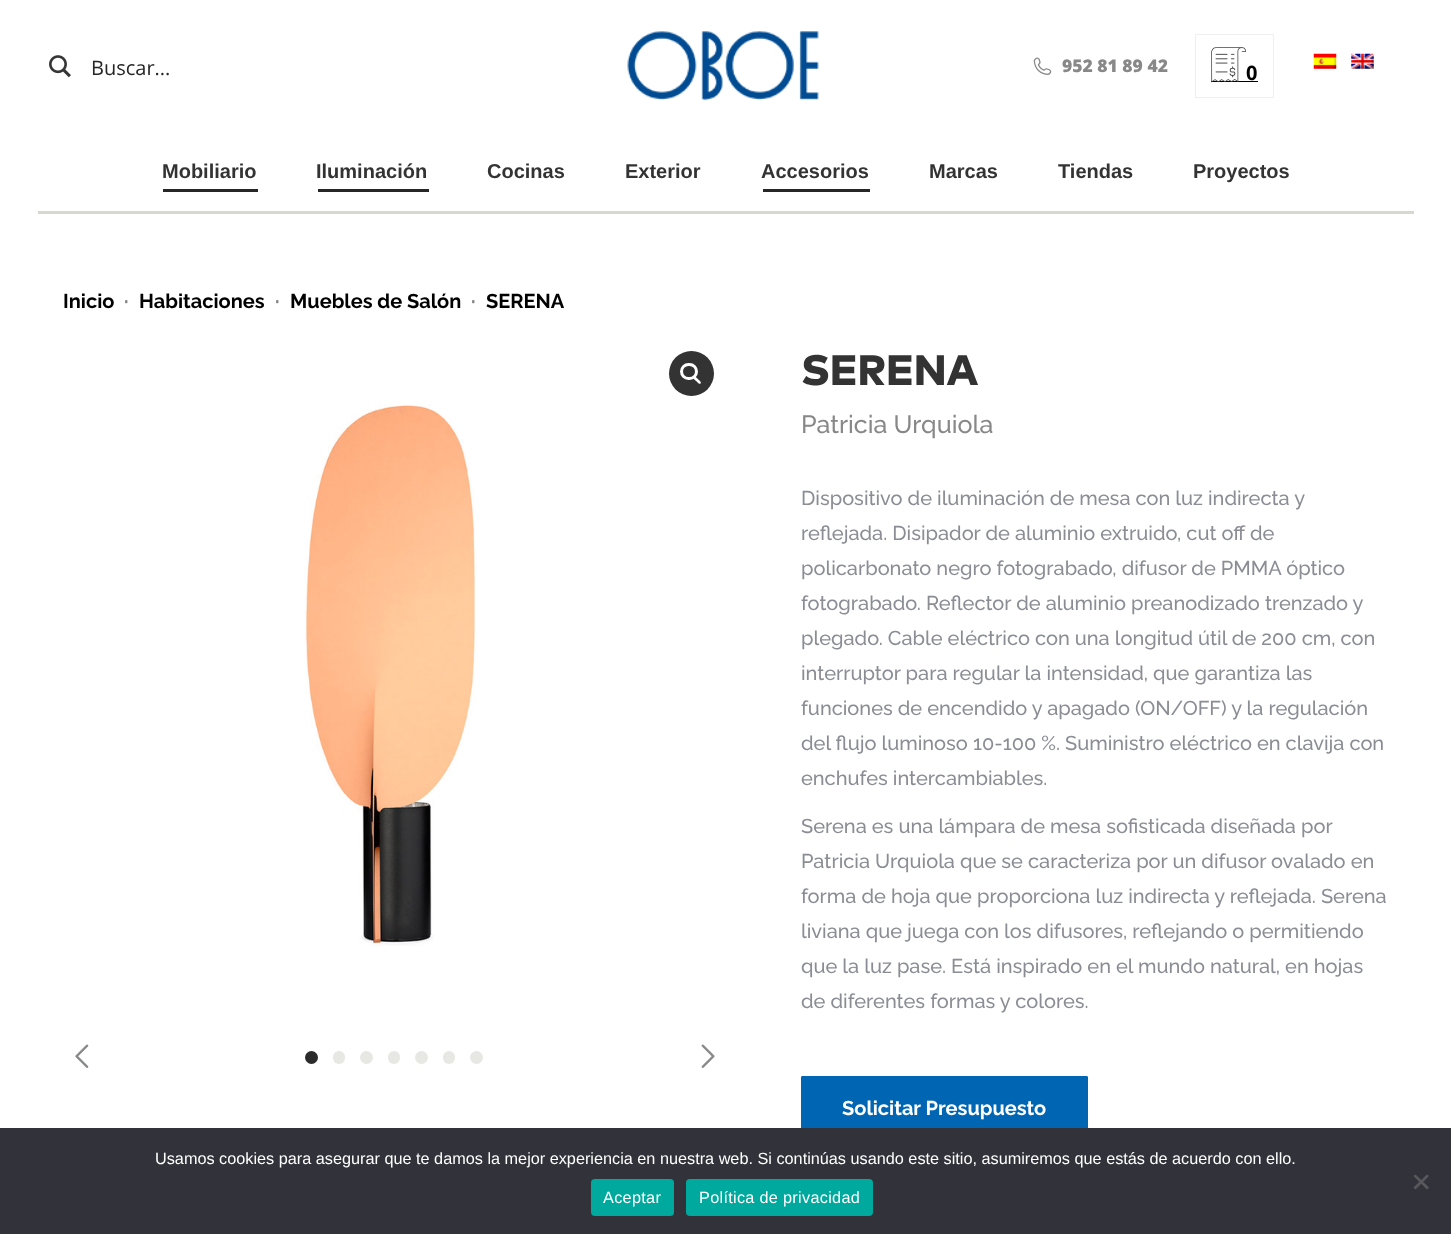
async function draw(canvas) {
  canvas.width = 1451;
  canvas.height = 1234;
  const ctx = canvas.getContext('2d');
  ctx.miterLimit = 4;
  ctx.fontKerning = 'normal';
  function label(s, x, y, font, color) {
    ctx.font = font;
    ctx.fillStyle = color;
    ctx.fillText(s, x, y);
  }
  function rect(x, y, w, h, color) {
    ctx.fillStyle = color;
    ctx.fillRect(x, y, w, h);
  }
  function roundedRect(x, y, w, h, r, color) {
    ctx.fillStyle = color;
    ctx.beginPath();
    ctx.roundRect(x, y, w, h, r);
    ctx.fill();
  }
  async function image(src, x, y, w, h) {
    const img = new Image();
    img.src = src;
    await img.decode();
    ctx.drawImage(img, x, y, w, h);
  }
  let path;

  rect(0, 0, 1451, 1234, '#fff');
  await image('assets/img1.png', 49, 55, 22, 23);
  label('Buscar...', 91, 75, '20px Open Sans', '#262626');
  await image('assets/img2.png', 627, 31, 192, 70);
  await image('assets/img3.png', 1033, 57, 19, 18);
  label('952 81 89 42', 1062, 72, '800 17.5px Open Sans', '#888');
  ctx.strokeStyle = '#efefef';
  ctx.strokeRect(1195.5, 34.5, 78, 63);
  rect(1211, 81, 47, 1, '#000');
  await image('assets/img4.png', 1211, 47, 35, 36);
  label('0', 1246, 80, 'bold 20px Open Sans', '#000');
  await image('assets/img5.png', 1313, 53, 24, 16);
  await image('assets/img6.png', 1351, 53, 23, 16);
  label('Mobiliario', 162, 178, 'bold 20px Liberation Sans', '#333');
  rect(163, 189, 95, 3, '#262626');
  label('Iluminación', 316, 178, 'bold 20px Liberation Sans', '#333');
  rect(318, 189, 111, 3, '#262626');
  label('Cocinas', 487, 178, 'bold 20px Liberation Sans', '#333');
  label('Exterior', 625, 178, 'bold 20px Liberation Sans', '#333');
  label('Accesorios', 761, 178, 'bold 20px Liberation Sans', '#333');
  rect(763, 189, 107, 3, '#262626');
  label('Marcas', 929, 178, 'bold 20px Liberation Sans', '#333');
  label('Tiendas', 1058, 178, 'bold 20px Liberation Sans', '#333');
  label('Proyectos', 1193, 178, 'bold 20px Liberation Sans', '#333');
  rect(38, 211, 1376, 3, '#d7d8cf');
  label('Inicio', 63, 308, 'bold 20px Raleway', '#000');
  label('·', 124, 308, 'bold 20px Raleway', '#808080');
  label('Habitaciones', 139, 308, 'bold 20px Raleway', '#000');
  label('·', 275, 308, 'bold 20px Raleway', '#808080');
  label('Muebles de Salón', 290, 308, 'bold 20px Raleway', '#000');
  label('·', 471, 308, 'bold 20px Raleway', '#808080');
  label('SERENA', 486, 308, 'bold 20px Raleway', '#000');
  ctx.fillStyle = '#333';
  ctx.beginPath();
  ctx.arc(691.5, 373.5, 22.5, 0, 2 * Math.PI);
  ctx.fill();
  ctx.beginPath();
  ctx.roundRect(681.5, 364.5, 15, 14, 7);
  ctx.strokeStyle = '#fff';
  ctx.lineWidth = 3;
  ctx.stroke();
  ctx.fillStyle = '#fff';
  path = new Path2D('M693.5 376.5C695 375 697 378.5 698 379C698.5 380 702 382 700.5 383.5C699 385 697 381.5 696 381C695 380 692 378 693.5 376.5Z');
  ctx.fill(path);
  await image('assets/img7.png', 304, 404, 171, 543);
  await image('assets/img8.png', 75, 1044, 14, 24);
  await image('assets/img9.png', 701, 1044, 14, 24);
  ctx.fillStyle = '#2b2b2b';
  ctx.beginPath();
  ctx.arc(311.5, 1057.5, 6.5, 0, 2 * Math.PI);
  ctx.fill();
  roundedRect(333, 1051, 12, 13, 6, '#e7e8e3');
  ctx.beginPath();
  ctx.arc(366.5, 1057.5, 6.5, 0, 2 * Math.PI);
  ctx.fill();
  roundedRect(388, 1051, 12, 13, 6, '#e7e8e3');
  ctx.beginPath();
  ctx.arc(421.5, 1057.5, 6.5, 0, 2 * Math.PI);
  ctx.fill();
  roundedRect(443, 1051, 12, 13, 6, '#e7e8e3');
  ctx.beginPath();
  ctx.arc(476.5, 1057.5, 6.5, 0, 2 * Math.PI);
  ctx.fill();
  label('SERENA', 801, 385, '900 42.5px "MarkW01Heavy"', '#333');
  label('Patricia Urquiola', 801, 433, '500 25px Raleway', '#888');
  label('Dispositivo de iluminación de mesa con luz indirecta y', 801, 505, '500 20px Raleway', '#8b8d94');
  label('reflejada. Disipador de aluminio extruido, cut off de', 801, 540, '500 20px Raleway', '#8b8d94');
  label('policarbonato negro fotograbado, difusor de PMMA óptico', 801, 575, '500 20px Raleway', '#8b8d94');
  label('fotograbado. Reflector de aluminio preanodizado trenzado y', 801, 610, '500 20px Raleway', '#8b8d94');
  label('plegado. Cable eléctrico con una longitud útil de 200 cm, con', 801, 645, '500 20px Raleway', '#8b8d94');
  label('interruptor para regular la intensidad, que garantiza las', 801, 680, '500 20px Raleway', '#8b8d94');
  label('funciones de encendido y apagado (ON/OFF) y la regulación', 801, 715, '500 20px Raleway', '#8b8d94');
  label('del flujo luminoso 10-100 %. Suministro eléctrico en clavija con', 801, 750, '500 20px Raleway', '#8b8d94');
  label('enchufes intercambiables.', 801, 785, '500 20px Raleway', '#8b8d94');
  label('Serena es una lámpara de mesa sofisticada diseñada por', 801, 833, '500 20px Raleway', '#8b8d94');
  label('Patricia Urquiola que se caracteriza por un difusor ovalado en', 801, 868, '500 20px Raleway', '#8b8d94');
  label('forma de hoja que proporciona luz indirecta y reflejada. Serena', 801, 903, '500 20px Raleway', '#8b8d94');
  label('liviana que juega con los difusores, reflejando o permitiendo', 801, 938, '500 20px Raleway', '#8b8d94');
  label('que la luz pase. Está inspirado en el mundo natural, en hojas', 801, 973, '500 20px Raleway', '#8b8d94');
  label('de diferentes formas y colores.', 801, 1008, '500 20px Raleway', '#8b8d94');
  ctx.fillStyle = '#0066b4';
  ctx.beginPath();
  ctx.roundRect(801.5, 1076.5, 286, 64, 0.5);
  ctx.fill();
  ctx.strokeStyle = '#0066b4';
  ctx.lineWidth = 1;
  ctx.stroke();
  label('Solicitar Presupuesto', 842, 1115, 'bold 20px Raleway', '#fff');
  rect(0, 1128, 1451, 106, '#32323a');
  label('Usamos cookies para asegurar que te damos la mejor experiencia en nuestra web. Si continúas usando este sitio, asumiremos que estás de acuerdo con ello.', 155, 1164, '16.25px Liberation Sans', '#fff');
  ctx.fillStyle = '#59595d';
  path = new Path2D('M1427 1174.5L1429 1176L1415.5 1189.5L1413.5 1187.5Z');
  ctx.fill(path);
  path = new Path2D('M1413.5 1176L1415.5 1174.5L1429 1187.5L1427 1189.5Z');
  ctx.fill(path);
  roundedRect(591, 1179, 83, 37, 4, '#00a99d');
  ctx.letterSpacing = '0.3px';
  label('Aceptar', 603, 1203, '16.25px Liberation Sans', '#fff');
  roundedRect(686, 1179, 187, 37, 4, '#00a99d');
  label('Política de privacidad', 699, 1203, '16.25px Liberation Sans', '#fff');
}

draw(document.querySelector('canvas'));
